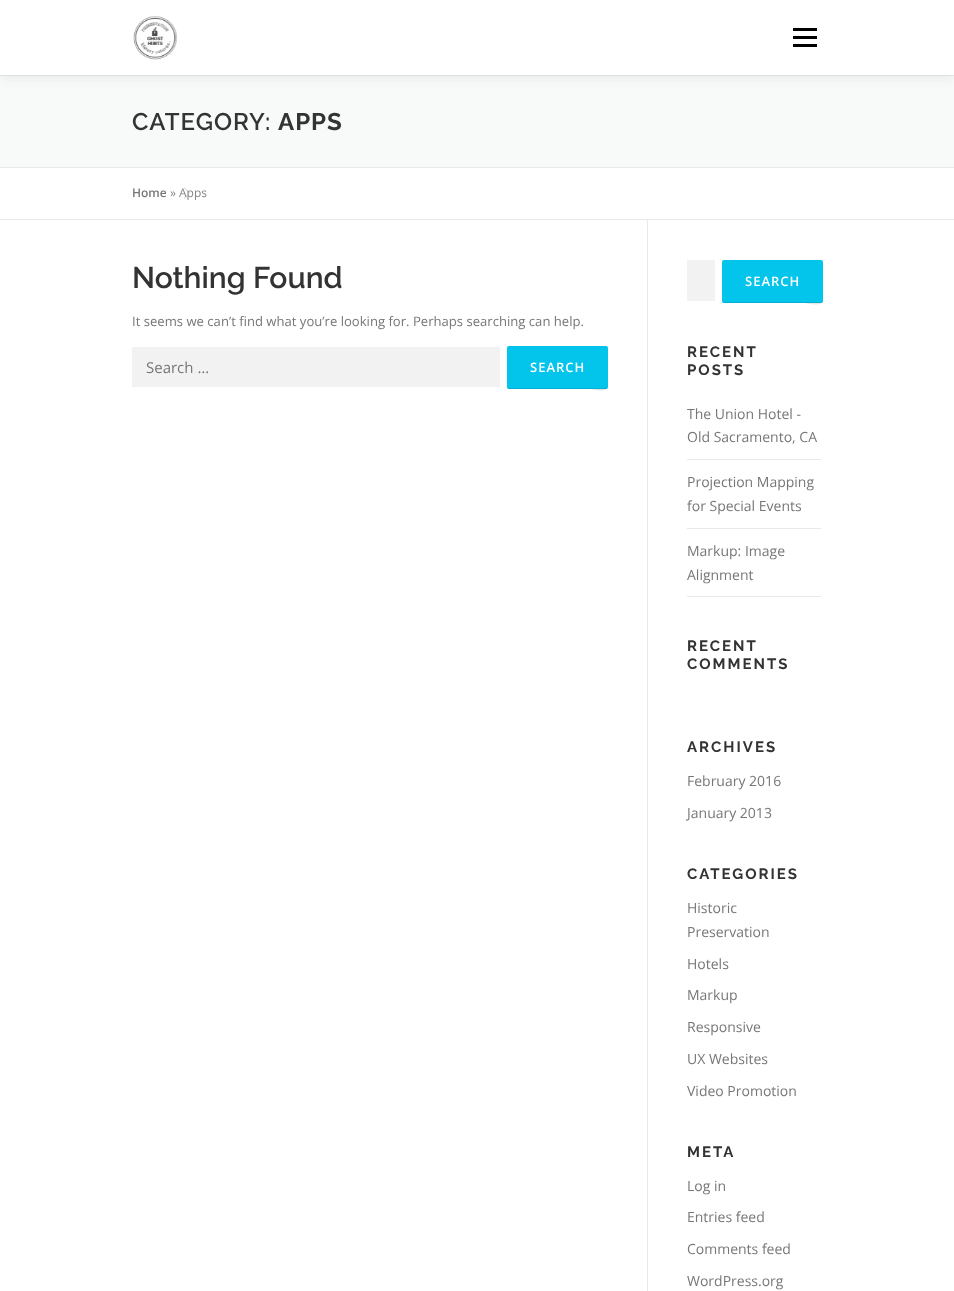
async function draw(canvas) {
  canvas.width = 954;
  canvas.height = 1291;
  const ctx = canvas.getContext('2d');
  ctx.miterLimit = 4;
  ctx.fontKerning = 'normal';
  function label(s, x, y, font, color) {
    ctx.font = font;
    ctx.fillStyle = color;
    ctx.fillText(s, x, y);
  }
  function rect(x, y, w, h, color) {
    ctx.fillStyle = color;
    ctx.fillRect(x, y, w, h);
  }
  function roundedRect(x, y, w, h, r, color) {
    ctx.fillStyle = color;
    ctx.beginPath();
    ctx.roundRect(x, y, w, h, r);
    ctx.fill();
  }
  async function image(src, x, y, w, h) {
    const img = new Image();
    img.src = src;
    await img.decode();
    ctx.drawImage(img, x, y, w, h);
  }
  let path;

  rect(0, 0, 954, 1291, '#fff');
  rect(0, 76, 954, 91, '#f8f9f9');
  rect(0, 75, 954, 1, '#e9e9e9');
  ctx.fillStyle = '#3232320f';
  ctx.filter = 'blur(5px)';
  ctx.beginPath();
  ctx.rect(0, 5, 954, 75);
  ctx.fill();
  ctx.filter = 'none';
  rect(0, 1, 954, 74, '#fff');
  await image('assets/img1.png', 133, 16, 45, 44);
  rect(793, 36, 24, 3, '#000');
  rect(793, 28, 24, 3, '#000');
  rect(793, 44, 24, 3, '#000');
  rect(0, 167, 954, 1, '#e9e9e9');
  ctx.letterSpacing = '1px';
  label('CATEGORY:', 132, 130, '600 24px Raleway', '#333');
  label('APPS', 278, 130, 'bold 24px Raleway', '#333');
  rect(0, 219, 954, 1, '#e9e9e9');
  ctx.letterSpacing = '0px';
  label('Home', 132, 197, '600 12px Open Sans', '#777');
  ctx.fillStyle = '#ccc';
  path = new Path2D('M184 199V187L190 193Z');
  ctx.fill(path);
  ctx.fillStyle = '#fff';
  path = new Path2D('M184 198V188L189 193Z');
  ctx.fill(path);
  label('»', 170, 197, '12px Open Sans', '#858585');
  label('Apps', 179, 197, '12px Open Sans', '#858585');
  label('Nothing Found', 132, 288, '600 30px Raleway', '#333');
  label('It seems we can’t find what you’re looking for. Perhaps searching can help.', 132, 326, '13.1px Open Sans', '#777');
  rect(132, 347, 368, 40, '#f2f2f2');
  label('Search …', 146, 373, '15px Open Sans', '#777');
  roundedRect(507, 346, 101, 43, 2, '#03c4eb');
  ctx.fillStyle = '#0000001a';
  path = new Path2D('M507 386C507 387 507 389 509 389H590C591 389 608 394 608 386C608 387 607 388 606 388H509C508 388 507 387 507 386Z');
  ctx.fill(path);
  ctx.letterSpacing = '1px';
  label('SEARCH', 530, 372, '600 13px Open Sans', '#fff');
  rect(647, 220, 1, 1071, '#e9e9e9');
  rect(687, 260, 28, 41, '#f2f2f2');
  roundedRect(722, 260, 101, 43, 2, '#03c4eb');
  ctx.fillStyle = '#0000001a';
  path = new Path2D('M722 300C722 301 722 303 724 303H805C806 303 823 308 823 300C823 301 822 302 821 302H724C723 302 722 301 722 300Z');
  ctx.fill(path);
  label('SEARCH', 745, 286, '600 13px Open Sans', '#fff');
  ctx.letterSpacing = '2px';
  label('RECENT', 687, 357, 'bold 15px Raleway', '#333');
  label('POSTS', 687, 375, 'bold 15px Raleway', '#333');
  rect(687, 459, 134, 1, '#e9e9e9');
  ctx.letterSpacing = '0px';
  label('The Union Hotel -', 687, 419, '14px Open Sans', '#777');
  label('Old Sacramento, CA', 687, 442, '14px Open Sans', '#777');
  rect(687, 528, 134, 1, '#e9e9e9');
  label('Projection Mapping', 687, 487, '14px Open Sans', '#777');
  label('for Special Events', 687, 511, '14px Open Sans', '#777');
  rect(687, 596, 134, 1, '#e9e9e9');
  label('Markup: Image', 687, 556, '14px Open Sans', '#777');
  label('Alignment', 687, 580, '14px Open Sans', '#777');
  ctx.letterSpacing = '2px';
  label('RECENT', 687, 651, 'bold 15px Raleway', '#333');
  label('COMMENTS', 687, 669, 'bold 15px Raleway', '#333');
  label('ARCHIVES', 687, 752, 'bold 15px Raleway', '#333');
  ctx.letterSpacing = '0px';
  label('February 2016', 687, 786, '14px Open Sans', '#777');
  label('January 2013', 687, 818, '14px Open Sans', '#777');
  ctx.letterSpacing = '2px';
  label('CATEGORIES', 687, 879, 'bold 15px Raleway', '#333');
  ctx.letterSpacing = '0px';
  label('Historic', 687, 913, '14px Open Sans', '#777');
  label('Preservation', 687, 937, '14px Open Sans', '#777');
  label('Hotels', 687, 969, '14px Open Sans', '#777');
  label('Markup', 687, 1000, '14px Open Sans', '#777');
  label('Responsive', 687, 1032, '14px Open Sans', '#777');
  label('UX Websites', 687, 1064, '14px Open Sans', '#777');
  label('Video Promotion', 687, 1096, '14px Open Sans', '#777');
  ctx.letterSpacing = '2px';
  label('META', 687, 1157, 'bold 15px Raleway', '#333');
  ctx.letterSpacing = '0px';
  label('Log in', 687, 1191, '14px Open Sans', '#777');
  label('Entries feed', 687, 1222, '14px Open Sans', '#777');
  label('Comments feed', 687, 1254, '14px Open Sans', '#777');
  label('WordPress.org', 687, 1286, '14px Open Sans', '#777');
}

draw(document.querySelector('canvas'));
